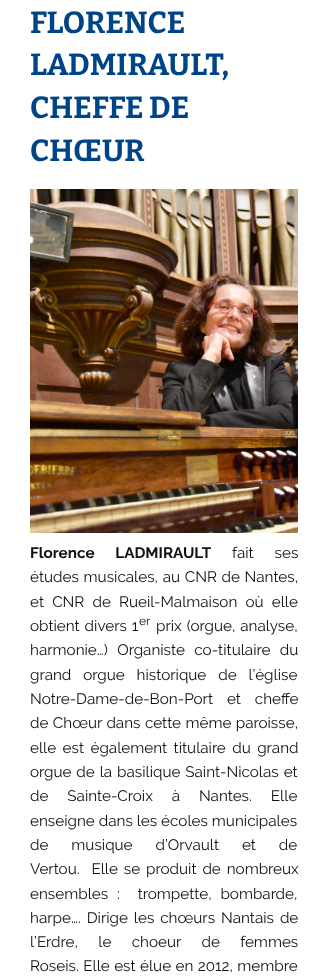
async function draw(canvas) {
  canvas.width = 328;
  canvas.height = 979;
  const ctx = canvas.getContext('2d');
  ctx.miterLimit = 4;
  ctx.fontKerning = 'normal';
  function label(s, x, y, font, color) {
    ctx.font = font;
    ctx.fillStyle = color;
    ctx.fillText(s, x, y);
  }
  function rect(x, y, w, h, color) {
    ctx.fillStyle = color;
    ctx.fillRect(x, y, w, h);
  }
  async function image(src, x, y, w, h) {
    const img = new Image();
    img.src = src;
    await img.decode();
    ctx.drawImage(img, x, y, w, h);
  }

  rect(0, 0, 328, 979, '#fff');
  label('FLORENCE', 30, 33, 'bold 30.5px Bitter', '#048');
  label('LADMIRAULT,', 30, 75, 'bold 30.5px Bitter', '#048');
  label('CHEFFE DE', 30, 118, 'bold 30.5px Bitter', '#048');
  label('CHŒUR', 30, 161, 'bold 30.5px Bitter', '#048');
  await image('assets/img1.png', 30, 189, 268, 344);
  ctx.wordSpacing = '17px';
  label('Florence LADMIRAULT', 30, 558, 'bold 15.25px Raleway', '#111');
  label('fait ses', 232, 558, '15.25px Raleway', '#111');
  ctx.wordSpacing = '0.75px';
  label('études musicales, au CNR de Nantes,', 30, 582, '15.25px Raleway', '#111');
  ctx.wordSpacing = '4.25px';
  label('et CNR de Rueil-Malmaison où elle', 30, 607, '15.25px Raleway', '#111');
  ctx.wordSpacing = '1px';
  label('obtient divers 1', 30, 631, '15.25px Raleway', '#111');
  ctx.wordSpacing = '0px';
  label('er', 139, 625, '12px Raleway', '#111');
  ctx.wordSpacing = '1px';
  label('prix (orgue, analyse,', 156, 631, '15.25px Raleway', '#111');
  ctx.wordSpacing = '5.5px';
  label('harmonie…) Organiste co-titulaire du', 30, 655, '15.25px Raleway', '#111');
  ctx.wordSpacing = '8px';
  label('grand orgue historique de l’église', 30, 680, '15.25px Raleway', '#111');
  ctx.wordSpacing = '10px';
  label('Notre-Dame-de-Bon-Port et cheffe', 30, 704, '15.25px Raleway', '#111');
  ctx.wordSpacing = '0.5px';
  label('de Chœur dans cette même paroisse,', 30, 728, '15.25px Raleway', '#111');
  ctx.wordSpacing = '2.5px';
  label('elle est également titulaire du grand', 30, 753, '15.25px Raleway', '#111');
  ctx.wordSpacing = '1px';
  label('orgue de la basilique Saint-Nicolas et', 30, 777, '15.25px Raleway', '#111');
  ctx.wordSpacing = '15px';
  label('de Sainte-Croix à Nantes. Elle', 30, 801, '15.25px Raleway', '#111');
  ctx.wordSpacing = '0px';
  label('enseigne dans les écoles municipales', 30, 826, '15.25px Raleway', '#111');
  ctx.wordSpacing = '19px';
  label('de musique d’Orvault et de', 30, 850, '15.25px Raleway', '#111');
  ctx.wordSpacing = '2px';
  label('Vertou.  Elle se produit de nombreux', 30, 874, '15.25px Raleway', '#111');
  ctx.wordSpacing = '5px';
  label('ensembles :  trompette, bombarde,', 30, 899, '15.25px Raleway', '#111');
  ctx.wordSpacing = '2px';
  label('harpe…. Dirige les chœurs Nantais de', 30, 923, '15.25px Raleway', '#111');
  ctx.wordSpacing = '16.5px';
  label('l’Erdre, le choeur de femmes', 30, 947, '15.25px Raleway', '#111');
  ctx.wordSpacing = '0.5px';
  label('Roseis. Elle est élue en 2012, membre', 30, 971, '15.25px Raleway', '#111');
}

draw(document.querySelector('canvas'));
